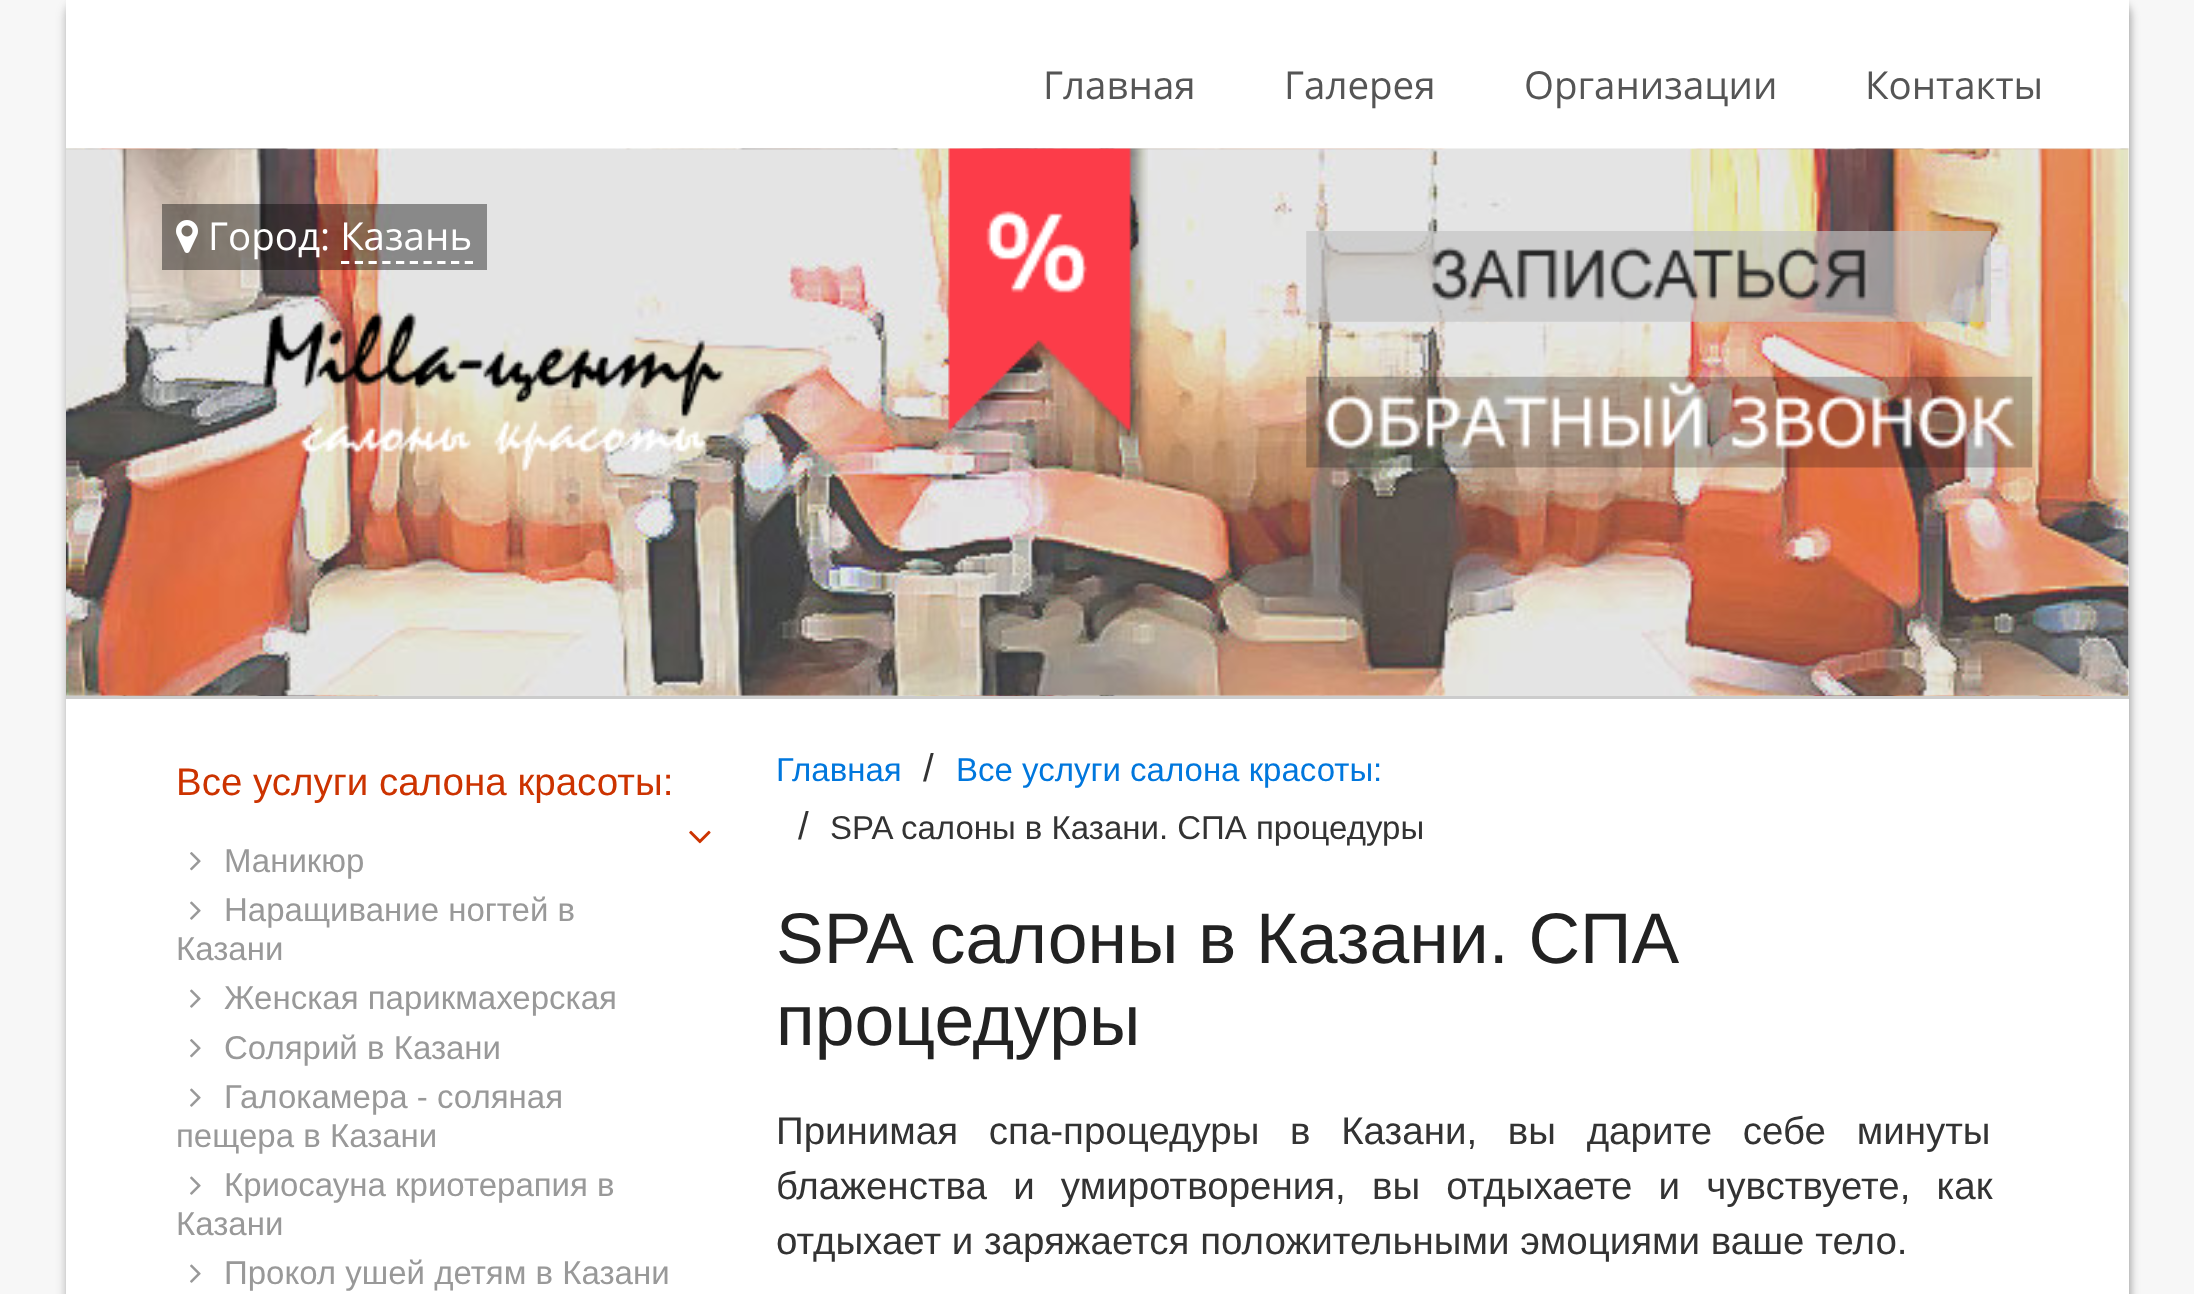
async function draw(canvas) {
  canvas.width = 2194;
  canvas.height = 1294;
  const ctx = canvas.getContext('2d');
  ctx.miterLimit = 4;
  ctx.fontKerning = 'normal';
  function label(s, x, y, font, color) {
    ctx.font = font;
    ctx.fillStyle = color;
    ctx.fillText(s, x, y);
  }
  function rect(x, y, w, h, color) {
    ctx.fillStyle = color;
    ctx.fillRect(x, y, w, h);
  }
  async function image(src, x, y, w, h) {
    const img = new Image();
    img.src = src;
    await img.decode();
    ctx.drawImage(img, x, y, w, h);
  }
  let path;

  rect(0, 0, 2194, 1294, '#f7f7f7');
  ctx.fillStyle = '#0000001a';
  ctx.filter = 'blur(4px)';
  ctx.beginPath();
  ctx.roundRect(63, 0, 2063, 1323, 17);
  ctx.fill();
  ctx.filter = 'none';
  ctx.fillStyle = '#0000004d';
  ctx.filter = 'blur(4px)';
  ctx.beginPath();
  ctx.roundRect(69, 0, 2062, 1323, 17);
  ctx.fill();
  ctx.filter = 'none';
  rect(66, 0, 2063, 1294, '#fff');
  label('Главная', 1043, 99, '38.5px Open Sans', '#555');
  label('Галерея', 1284, 99, '38.5px Open Sans', '#555');
  label('Организации', 1524, 99, '38.5px Open Sans', '#555');
  label('Контакты', 1865, 99, '38.5px Open Sans', '#555');
  await image('assets/img1.png', 66, 148, 2063, 548);
  rect(66, 696, 2063, 3, '#ccc');
  rect(162, 204, 325, 66, '#00000066');
  await image('assets/img2.png', 176, 220, 22, 33);
  label('Город: Казань', 208, 250, '38.5px Open Sans', '#fff');
  path = new Path2D('M341 262.5H473');
  ctx.strokeStyle = '#fff';
  ctx.lineWidth = 2.8;
  ctx.setLineDash([8.25, 5.5]);
  ctx.stroke(path);
  await image('assets/img3.png', 263, 312, 461, 160);
  await image('assets/img4.png', 948, 148, 200, 299);
  await image('assets/img5.png', 1306, 231, 685, 91);
  await image('assets/img6.png', 1306, 376, 727, 92);
  label('Все услуги салона красоты:', 176, 795, '38.5px Liberation Sans', '#c30');
  await image('assets/img7.png', 689, 830, 22, 14);
  await image('assets/img8.png', 190, 852, 11, 19);
  label('Маникюр', 224, 872, '33px Liberation Sans', '#999');
  await image('assets/img9.png', 190, 901, 11, 19);
  label('Наращивание ногтей в', 224, 921, '33px Liberation Sans', '#999');
  label('Казани', 176, 960, '33px Liberation Sans', '#999');
  await image('assets/img9.png', 190, 989, 11, 19);
  label('Женская парикмахерская', 224, 1009, '33px Liberation Sans', '#999');
  await image('assets/img8.png', 190, 1039, 11, 19);
  label('Солярий в Казани', 224, 1059, '33px Liberation Sans', '#999');
  await image('assets/img9.png', 190, 1088, 11, 19);
  label('Галокамера - соляная', 224, 1108, '33px Liberation Sans', '#999');
  label('пещера в Казани', 176, 1147, '33px Liberation Sans', '#999');
  await image('assets/img9.png', 190, 1176, 11, 19);
  label('Криосауна криотерапия в', 224, 1196, '33px Liberation Sans', '#999');
  label('Казани', 176, 1235, '33px Liberation Sans', '#999');
  await image('assets/img9.png', 190, 1264, 11, 19);
  label('Прокол ушей детям в Казани', 224, 1284, '33px Liberation Sans', '#999');
  label('Главная', 776, 781, '33px Liberation Sans', '#07d');
  label('/', 923, 781, '38.5px Liberation Sans', '#333');
  label('Все услуги салона красоты:', 956, 781, '33px Liberation Sans', '#07d');
  label('/', 798, 839, '38.5px Liberation Sans', '#333');
  label('SPA салоны в Казани. СПА процедуры', 830, 839, '33px Liberation Sans', '#333');
  label('SPA салоны в Казани. СПА', 776, 963, '71.5px Liberation Sans', '#222');
  label('процедуры', 776, 1045, '71.5px Liberation Sans', '#222');
  ctx.wordSpacing = '20px';
  label('Принимая спа-процедуры в Казани, вы дарите себе минуты', 776, 1144, '38.5px Liberation Sans', '#333');
  ctx.wordSpacing = '15.5px';
  label('блаженства и умиротворения, вы отдыхаете и чувствуете, как', 776, 1199, '38.5px Liberation Sans', '#333');
  ctx.wordSpacing = '0px';
  label('отдыхает и заряжается положительными эмоциями ваше тело.', 776, 1254, '38.5px Liberation Sans', '#333');
}

draw(document.querySelector('canvas'));
